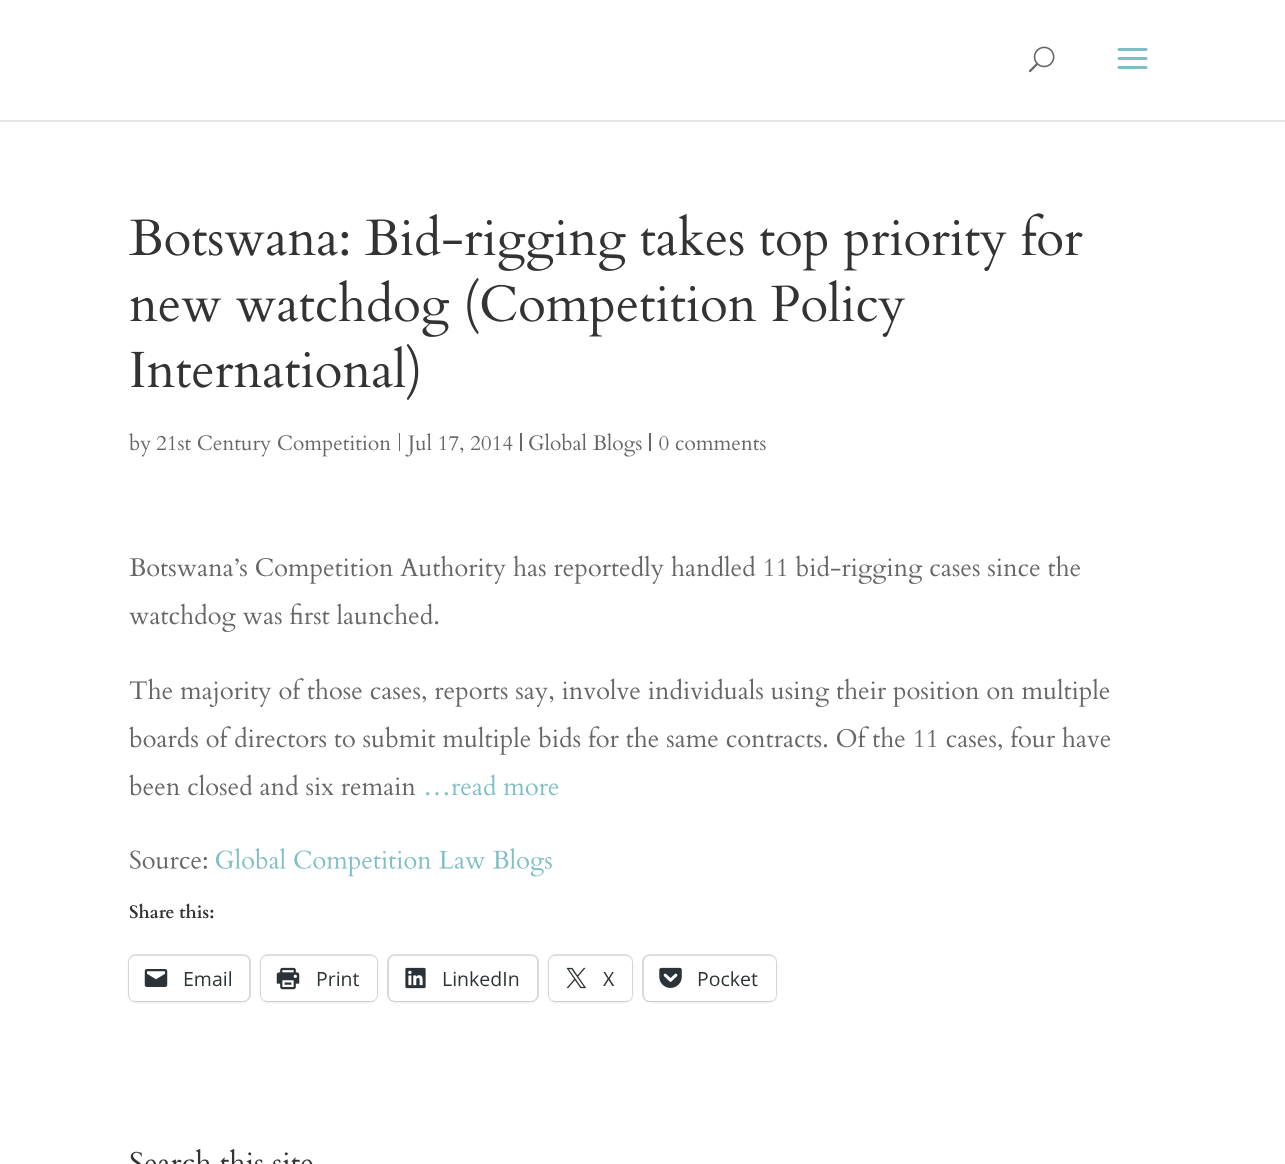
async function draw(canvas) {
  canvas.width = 1285;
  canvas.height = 1164;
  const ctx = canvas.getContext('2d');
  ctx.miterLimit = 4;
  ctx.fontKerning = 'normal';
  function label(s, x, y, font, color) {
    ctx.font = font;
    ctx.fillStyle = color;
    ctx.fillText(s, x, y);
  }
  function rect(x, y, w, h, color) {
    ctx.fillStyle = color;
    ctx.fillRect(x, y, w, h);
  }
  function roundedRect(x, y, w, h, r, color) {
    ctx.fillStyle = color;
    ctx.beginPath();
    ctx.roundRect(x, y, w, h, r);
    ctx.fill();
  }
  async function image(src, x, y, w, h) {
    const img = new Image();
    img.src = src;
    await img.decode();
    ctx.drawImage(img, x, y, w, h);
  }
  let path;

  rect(0, 0, 1285, 1164, '#fff');
  ctx.fillStyle = '#e6e6e6';
  path = new Path2D('M0 120V122H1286V2V120Z');
  ctx.fill(path);
  await image('assets/img1.png', 1028, 46, 27, 27);
  await image('assets/img2.png', 1117, 48, 31, 21);
  await image('assets/img3.png', 129, 213, 954, 58);
  await image('assets/img4.png', 130, 277, 775, 60);
  await image('assets/img5.png', 131, 344, 288, 56);
  await image('assets/img6.png', 129, 433, 22, 24);
  await image('assets/img7.png', 156, 435, 235, 22);
  rect(399, 433, 1, 18, '#666');
  await image('assets/img8.png', 405, 433, 108, 24);
  rect(520, 433, 2, 18, '#666');
  await image('assets/img9.png', 529, 433, 113, 24);
  rect(649, 433, 2, 18, '#666');
  await image('assets/img10.png', 659, 435, 107, 16);
  await image('assets/img11.png', 129, 555, 951, 29);
  await image('assets/img12.png', 129, 603, 310, 29);
  await image('assets/img13.png', 129, 678, 981, 29);
  await image('assets/img14.png', 129, 726, 982, 29);
  await image('assets/img15.png', 129, 774, 287, 22);
  await image('assets/img16.png', 426, 774, 133, 22);
  await image('assets/img17.png', 130, 850, 77, 19);
  await image('assets/img18.png', 215, 848, 337, 29);
  label('Share this:', 129, 918, 'bold 18px Cardo', '#333');
  ctx.beginPath();
  ctx.roundRect(129, 955, 121, 46, 7);
  ctx.strokeStyle = '#e0e0e0';
  ctx.lineWidth = 2;
  ctx.stroke();
  ctx.fillStyle = '#0000001f';
  ctx.filter = 'blur(1.5px)';
  ctx.beginPath();
  ctx.roundRect(129, 957, 120, 45, 6);
  ctx.fill();
  ctx.filter = 'none';
  roundedRect(129, 956, 120, 45, 6, '#fff');
  await image('assets/img19.png', 144, 969, 24, 18);
  label('Email', 183, 986, '19.5px Open Sans', '#2c3338');
  ctx.beginPath();
  ctx.roundRect(261, 955, 116, 46, 7);
  ctx.stroke();
  ctx.fillStyle = '#0000001f';
  ctx.filter = 'blur(1.5px)';
  ctx.beginPath();
  ctx.roundRect(261, 957, 116, 45, 6);
  ctx.fill();
  ctx.filter = 'none';
  roundedRect(261, 956, 116, 45, 6, '#fff');
  await image('assets/img20.png', 276, 967, 24, 23);
  label('Print', 316, 986, '19.5px Open Sans', '#2c3338');
  ctx.beginPath();
  ctx.roundRect(388, 955, 150, 46, 7);
  ctx.stroke();
  ctx.fillStyle = '#0000001f';
  ctx.filter = 'blur(1.5px)';
  ctx.beginPath();
  ctx.roundRect(389, 957, 148, 45, 6);
  ctx.fill();
  ctx.filter = 'none';
  roundedRect(389, 956, 148, 45, 6, '#fff');
  await image('assets/img21.png', 405, 967, 21, 22);
  label('LinkedIn', 442, 986, '19.5px Open Sans', '#2c3338');
  ctx.beginPath();
  ctx.roundRect(549, 955, 83, 46, 7);
  ctx.stroke();
  ctx.fillStyle = '#0000001f';
  ctx.filter = 'blur(1.5px)';
  ctx.beginPath();
  ctx.roundRect(549, 957, 83, 45, 6);
  ctx.fill();
  ctx.filter = 'none';
  roundedRect(549, 956, 83, 45, 6, '#fff');
  await image('assets/img22.png', 566, 967, 21, 22);
  label('X', 603, 986, '19.5px Open Sans', '#2c3338');
  ctx.beginPath();
  ctx.roundRect(643, 955, 133, 46, 7);
  ctx.stroke();
  ctx.fillStyle = '#0000001f';
  ctx.filter = 'blur(1.5px)';
  ctx.beginPath();
  ctx.roundRect(644, 957, 132, 45, 6);
  ctx.fill();
  ctx.filter = 'none';
  roundedRect(644, 956, 132, 45, 6, '#fff');
  await image('assets/img23.png', 659, 967, 23, 21);
  label('Pocket', 697, 986, '19.5px Open Sans', '#2c3338');
  await image('assets/img24.png', 130, 1149, 183, 15);
}

draw(document.querySelector('canvas'));
